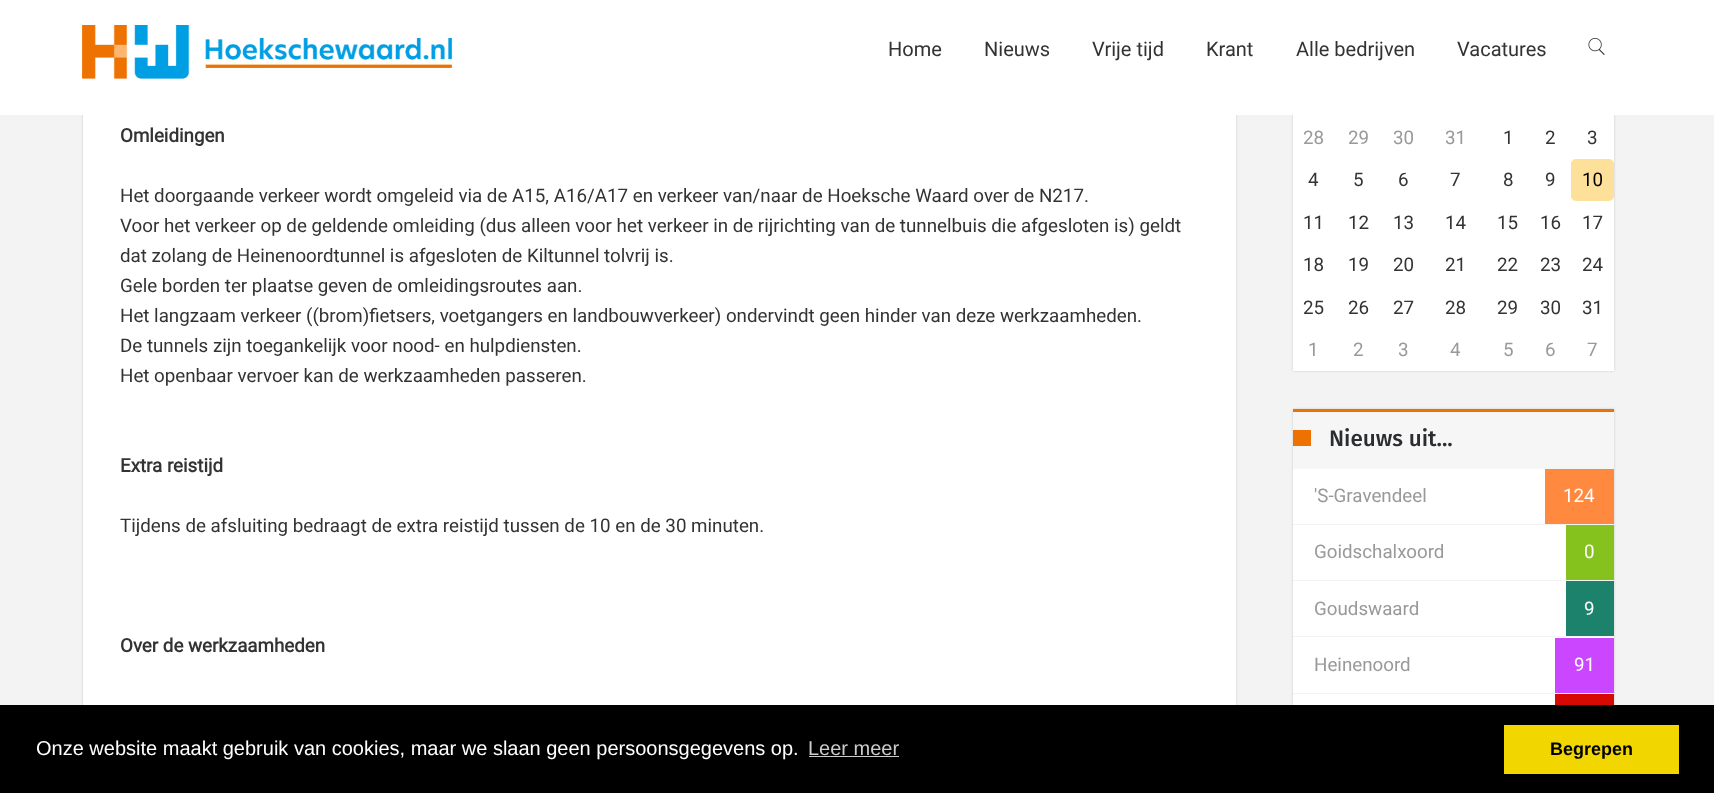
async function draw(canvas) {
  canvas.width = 1714;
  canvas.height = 793;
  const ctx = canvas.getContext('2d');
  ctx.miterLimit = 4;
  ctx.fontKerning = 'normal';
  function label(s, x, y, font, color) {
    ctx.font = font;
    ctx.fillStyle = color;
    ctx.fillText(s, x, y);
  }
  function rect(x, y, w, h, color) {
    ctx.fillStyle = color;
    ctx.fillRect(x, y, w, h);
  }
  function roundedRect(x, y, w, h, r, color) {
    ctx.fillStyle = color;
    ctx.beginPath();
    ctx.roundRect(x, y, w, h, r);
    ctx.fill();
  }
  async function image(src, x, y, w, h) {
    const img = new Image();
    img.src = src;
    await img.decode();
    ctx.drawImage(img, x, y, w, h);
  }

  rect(0, 0, 1714, 793, '#f3f3f3');
  ctx.fillStyle = '#0000002e';
  ctx.filter = 'blur(1px)';
  ctx.beginPath();
  ctx.rect(83, -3, 1153, 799);
  ctx.fill();
  ctx.filter = 'none';
  ctx.filter = 'blur(1px)';
  ctx.beginPath();
  ctx.rect(1293, -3, 321, 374);
  ctx.fill();
  ctx.filter = 'none';
  rect(0, 0, 1714, 115, '#fff');
  await image('assets/img1.png', 82, 25, 371, 54);
  label('Home', 888, 56, '20px Roboto', '#333');
  label('Nieuws', 984, 56, '20px Roboto', '#333');
  label('Vrije tijd', 1092, 56, '20px Roboto', '#333');
  label('Krant', 1206, 56, '20px Roboto', '#333');
  label('Alle bedrijven', 1296, 56, '20px Roboto', '#333');
  label('Vacatures', 1457, 56, '20px Roboto', '#333');
  await image('assets/img2.png', 1588, 38, 17, 17);
  rect(83, 115, 1153, 590, '#fff');
  label('Omleidingen', 120, 142, 'bold 18.75px Roboto', '#333');
  label('Het doorgaande verkeer wordt omgeleid via de A15, A16/A17 en verkeer van/naar de Hoeksche Waard over de N217.', 120, 202, '18.75px Roboto', '#333');
  label('Voor het verkeer op de geldende omleiding (dus alleen voor het verkeer in de rijrichting van de tunnelbuis die afgesloten is) geldt', 120, 232, '18.75px Roboto', '#333');
  label('dat zolang de Heinenoordtunnel is afgesloten de Kiltunnel tolvrij is.', 120, 262, '18.75px Roboto', '#333');
  label('Gele borden ter plaatse geven de omleidingsroutes aan.', 120, 292, '18.75px Roboto', '#333');
  label('Het langzaam verkeer ((brom)fietsers, voetgangers en landbouwverkeer) ondervindt geen hinder van deze werkzaamheden.', 120, 322, '18.75px Roboto', '#333');
  label('De tunnels zijn toegankelijk voor nood- en hulpdiensten.', 120, 352, '18.75px Roboto', '#333');
  label('Het openbaar vervoer kan de werkzaamheden passeren.', 120, 382, '18.75px Roboto', '#333');
  label('Extra reistijd', 120, 472, 'bold 18.75px Roboto', '#333');
  label('Tijdens de afsluiting bedraagt de extra reistijd tussen de 10 en de 30 minuten.', 120, 532, '18.75px Roboto', '#333');
  label('Over de werkzaamheden', 120, 652, 'bold 18.75px Roboto', '#333');
  rect(1293, 115, 321, 256, '#fff');
  label('28', 1303, 144, '18.75px Roboto', '#999');
  label('29', 1348, 144, '18.75px Roboto', '#999');
  label('30', 1393, 144, '18.75px Roboto', '#999');
  label('31', 1445, 144, '18.75px Roboto', '#999');
  label('1', 1503, 144, '18.75px Roboto', '#333');
  label('2', 1545, 144, '18.75px Roboto', '#333');
  label('3', 1587, 144, '18.75px Roboto', '#333');
  label('4', 1308, 186, '18.75px Roboto', '#333');
  label('5', 1353, 186, '18.75px Roboto', '#333');
  label('6', 1398, 186, '18.75px Roboto', '#333');
  label('7', 1450, 186, '18.75px Roboto', '#333');
  label('8', 1503, 186, '18.75px Roboto', '#333');
  label('9', 1545, 186, '18.75px Roboto', '#333');
  roundedRect(1571, 159, 43, 42, 5, '#fde19a');
  label('10', 1582, 186, '18.75px Roboto', '#000');
  label('11', 1303, 229, '18.75px Roboto', '#333');
  label('12', 1348, 229, '18.75px Roboto', '#333');
  label('13', 1393, 229, '18.75px Roboto', '#333');
  label('14', 1445, 229, '18.75px Roboto', '#333');
  label('15', 1497, 229, '18.75px Roboto', '#333');
  label('16', 1540, 229, '18.75px Roboto', '#333');
  label('17', 1582, 229, '18.75px Roboto', '#333');
  label('18', 1303, 271, '18.75px Roboto', '#333');
  label('19', 1348, 271, '18.75px Roboto', '#333');
  label('20', 1393, 271, '18.75px Roboto', '#333');
  label('21', 1445, 271, '18.75px Roboto', '#333');
  label('22', 1497, 271, '18.75px Roboto', '#333');
  label('23', 1540, 271, '18.75px Roboto', '#333');
  label('24', 1582, 271, '18.75px Roboto', '#333');
  label('25', 1303, 314, '18.75px Roboto', '#333');
  label('26', 1348, 314, '18.75px Roboto', '#333');
  label('27', 1393, 314, '18.75px Roboto', '#333');
  label('28', 1445, 314, '18.75px Roboto', '#333');
  label('29', 1497, 314, '18.75px Roboto', '#333');
  label('30', 1540, 314, '18.75px Roboto', '#333');
  label('31', 1582, 314, '18.75px Roboto', '#333');
  label('1', 1308, 356, '18.75px Roboto', '#999');
  label('2', 1353, 356, '18.75px Roboto', '#999');
  label('3', 1398, 356, '18.75px Roboto', '#999');
  label('4', 1450, 356, '18.75px Roboto', '#999');
  label('5', 1503, 356, '18.75px Roboto', '#999');
  label('6', 1545, 356, '18.75px Roboto', '#999');
  label('7', 1587, 356, '18.75px Roboto', '#999');
  ctx.fillStyle = '#0000002e';
  ctx.filter = 'blur(1px)';
  ctx.beginPath();
  ctx.rect(1293, 409, 321, 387);
  ctx.fill();
  ctx.filter = 'none';
  rect(1293, 469, 321, 236, '#fff');
  rect(1293, 412, 321, 57, '#f6f6f6');
  rect(1293, 409, 321, 3, '#ee7202');
  rect(1293, 430, 18, 16, '#ee7202');
  label('Nieuws uit...', 1329, 446, '500 22.5px Fira Sans', '#2c2d30');
  rect(1293, 524, 321, 1, '#f3f3f3');
  label('\'S-Gravendeel', 1314, 502, '18.75px Roboto', '#999');
  rect(1545, 469, 69, 55, '#ff893f');
  label('124', 1563, 502, '18.75px Roboto', '#fff');
  rect(1293, 580, 321, 1, '#f3f3f3');
  label('Goidschalxoord', 1314, 558, '18.75px Roboto', '#999');
  rect(1566, 525, 48, 55, '#86c21e');
  label('0', 1584, 558, '18.75px Roboto', '#fff');
  rect(1293, 636, 321, 1, '#f3f3f3');
  label('Goudswaard', 1314, 615, '18.75px Roboto', '#999');
  rect(1566, 581, 48, 55, '#1d826c');
  label('9', 1584, 615, '18.75px Roboto', '#fff');
  rect(1293, 693, 321, 1, '#f3f3f3');
  label('Heinenoord', 1314, 671, '18.75px Roboto', '#999');
  rect(1555, 638, 59, 55, '#cb46ff');
  label('91', 1574, 671, '18.75px Roboto', '#fff');
  rect(1555, 694, 59, 11, '#d60a03');
  rect(0, 705, 1714, 88, '#000');
  label('Onze website maakt gebruik van cookies, maar we slaan geen persoonsgegevens op.', 36, 755, '20px Liberation Sans', '#fff');
  label('Leer meer', 808, 755, '20px Liberation Sans', '#ccc');
  rect(809, 756, 90, 1, '#ccc');
  rect(1504, 725, 175, 49, '#f1d600');
  label('Begrepen', 1550, 755, 'bold 18px Liberation Sans', '#000');
}

draw(document.querySelector('canvas'));
